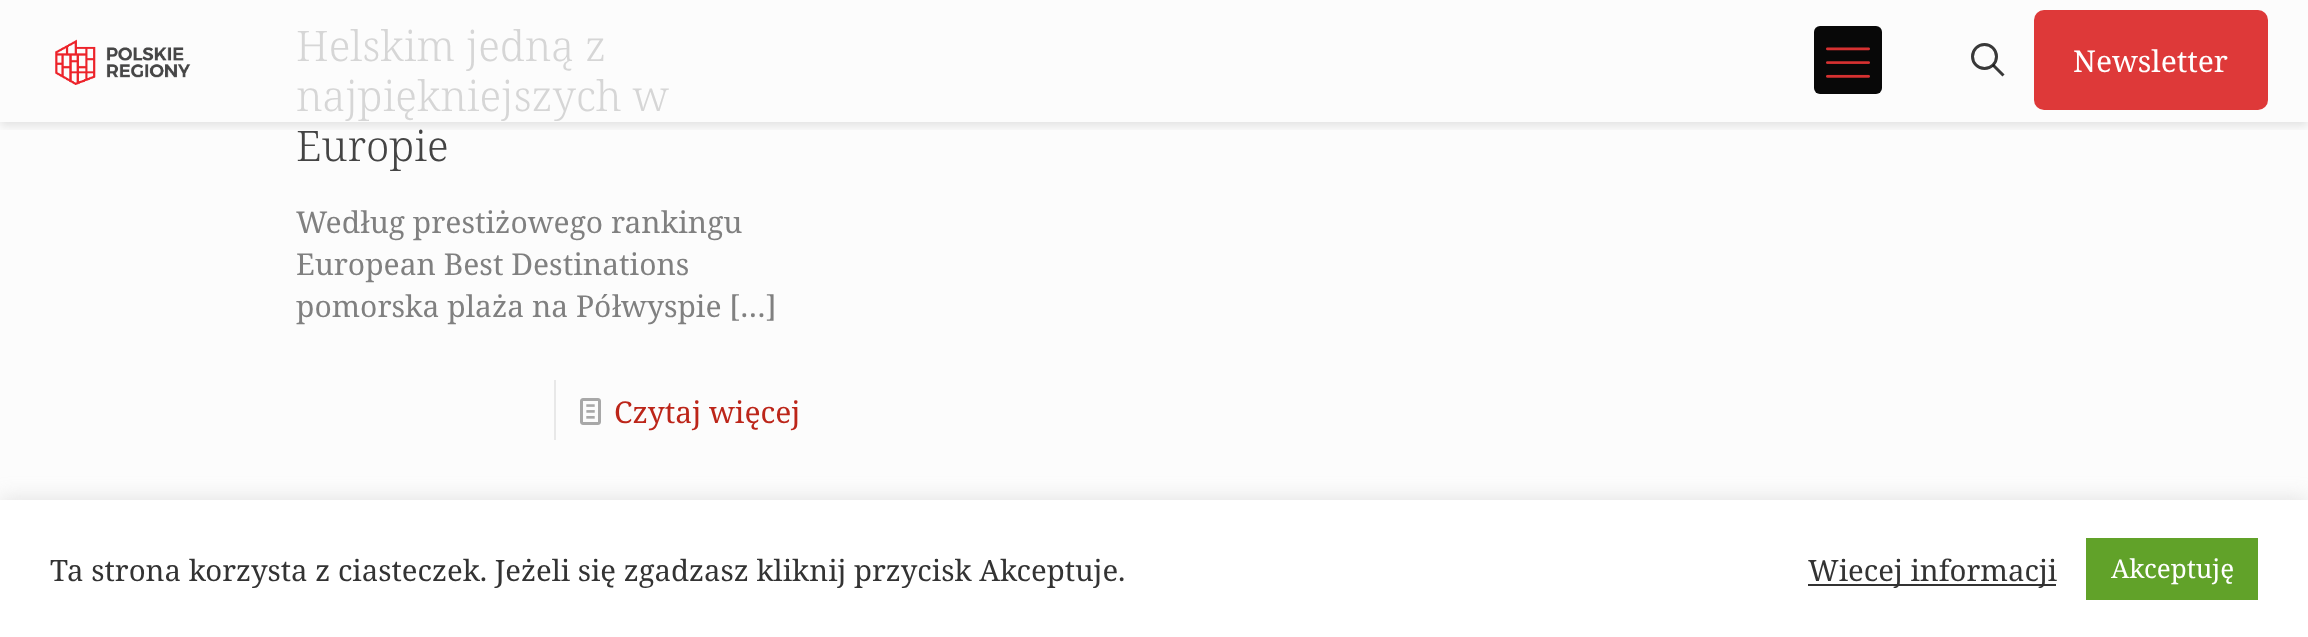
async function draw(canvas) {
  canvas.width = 2308;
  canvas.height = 637;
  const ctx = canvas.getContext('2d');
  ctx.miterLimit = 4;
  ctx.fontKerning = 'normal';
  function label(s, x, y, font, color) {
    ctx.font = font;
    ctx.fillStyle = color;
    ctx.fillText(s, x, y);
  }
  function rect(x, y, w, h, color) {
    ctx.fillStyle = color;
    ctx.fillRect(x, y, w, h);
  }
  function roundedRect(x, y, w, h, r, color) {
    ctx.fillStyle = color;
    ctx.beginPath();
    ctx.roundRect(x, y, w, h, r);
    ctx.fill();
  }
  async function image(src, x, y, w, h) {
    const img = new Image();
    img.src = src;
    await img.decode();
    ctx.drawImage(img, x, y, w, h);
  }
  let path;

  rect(0, 0, 2308, 637, '#fcfcfc');
  label('Helskim jedną z', 296, 61, '300 42px Noto Serif', '#d6d6d6');
  label('najpiękniejszych w', 296, 111, '300 42px Noto Serif', '#d6d6d6');
  label('Europie', 296, 161, '300 42px Noto Serif', '#444');
  label('Według prestiżowego rankingu', 296, 233, '30px Noto Serif', '#808080');
  label('European Best Destinations', 296, 275, '30px Noto Serif', '#808080');
  label('pomorska plaża na Półwyspie […]', 296, 317, '30px Noto Serif', '#808080');
  rect(554, 380, 2, 60, '#e8e8e8');
  await image('assets/img1.png', 580, 398, 21, 27);
  label('Czytaj więcej', 614, 423, '30px Noto Serif', '#bc2519');
  ctx.save();
  ctx.beginPath();
  ctx.rect(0, 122, 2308, 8);
  ctx.clip();
  ctx.fillStyle = '#0000001a';
  ctx.filter = 'blur(5px)';
  ctx.beginPath();
  ctx.rect(0, 4, 2308, 122);
  ctx.fill();
  ctx.filter = 'none';
  ctx.restore();
  await image('assets/img2.png', 55, 39, 136, 46);
  roundedRect(1814, 26, 68, 68, 6, '#080808');
  await image('assets/img3.png', 1826, 47, 44, 31);
  ctx.beginPath();
  ctx.arc(1984.5, 56.5, 12, 0, 2 * Math.PI);
  ctx.strokeStyle = '#393939';
  ctx.lineWidth = 3;
  ctx.stroke();
  path = new Path2D('M1993 65L2003.5 75.5');
  ctx.strokeStyle = '#080808cc';
  ctx.stroke(path);
  roundedRect(2034, 10, 234, 100, 10, '#de3939');
  label('Newsletter', 2073, 72, '30px Noto Serif', '#fff');
  ctx.fillStyle = '#acabab4d';
  ctx.filter = 'blur(10px)';
  ctx.beginPath();
  ctx.rect(0, 498, 2308, 138);
  ctx.fill();
  ctx.filter = 'none';
  rect(0, 500, 2308, 137, '#fff');
  label('Ta strona korzysta z ciasteczek. Jeżeli się zgadzasz kliknij przycisk Akceptuje.', 50, 581, '29.35px Noto Serif', '#333');
  rect(1808, 584, 248, 2, '#333');
  label('Wiecej informacji', 1808, 581, '29.35px Noto Serif', '#333');
  rect(2086, 538, 172, 62, '#61a229');
  label('Akceptuję', 2111, 578, '26px Noto Serif', '#fff');
}

draw(document.querySelector('canvas'));
